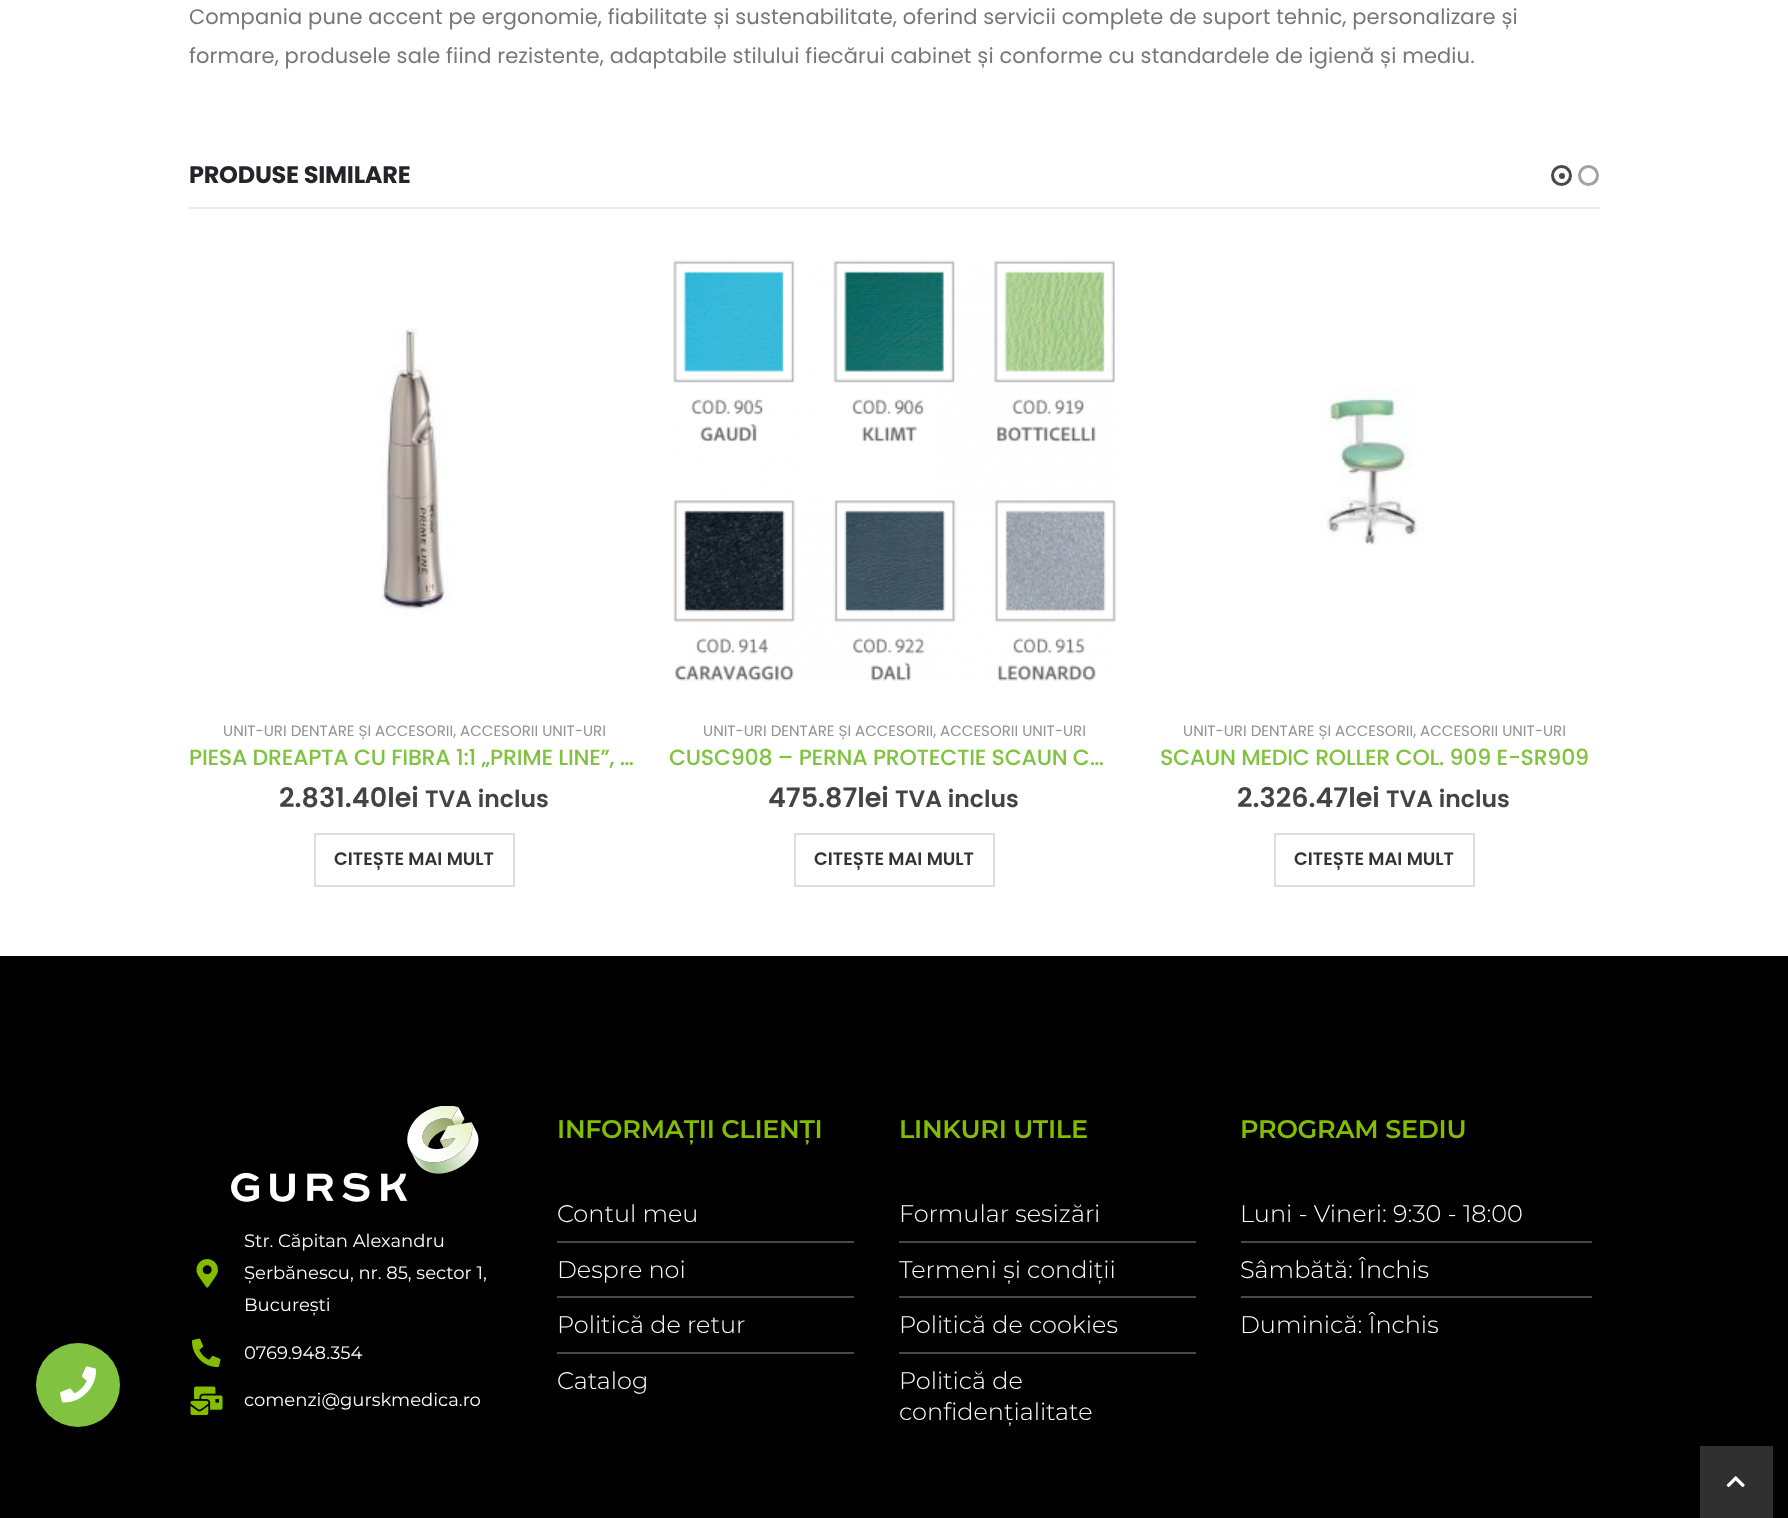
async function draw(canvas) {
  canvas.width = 1788;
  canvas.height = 1518;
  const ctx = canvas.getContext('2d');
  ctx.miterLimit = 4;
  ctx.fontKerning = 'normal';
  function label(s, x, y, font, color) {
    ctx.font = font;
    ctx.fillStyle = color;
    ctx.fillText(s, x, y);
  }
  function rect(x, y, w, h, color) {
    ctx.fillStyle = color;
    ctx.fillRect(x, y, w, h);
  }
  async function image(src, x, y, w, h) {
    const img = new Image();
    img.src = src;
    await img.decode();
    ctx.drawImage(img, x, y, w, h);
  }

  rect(0, 0, 1788, 1518, '#fff');
  rect(0, 956, 1788, 562, '#000');
  ctx.fillStyle = '#81c341';
  ctx.beginPath();
  ctx.arc(78, 1385, 42, 0, 2 * Math.PI);
  ctx.fill();
  await image('assets/img1.png', 60, 1366, 37, 37);
  ctx.letterSpacing = '0.11px';
  label('Compania pune accent pe ergonomie, fiabilitate și sustenabilitate, oferind servicii complete de suport tehnic, personalizare și', 189, 24, '21px Poppins', '#777');
  label('formare, produsele sale fiind rezistente, adaptabile stilului fiecărui cabinet și conforme cu standardele de igienă și mediu.', 189, 63, '21px Poppins', '#777');
  rect(189, 207, 1410, 2, '#ebebeb');
  ctx.letterSpacing = '-0.25px';
  label('PRODUSE SIMILARE', 189, 183, 'bold 24px Poppins', '#222529');
  ctx.beginPath();
  ctx.arc(1561.5, 175.5, 9, 0, 2 * Math.PI);
  ctx.strokeStyle = '#494949';
  ctx.lineWidth = 3;
  ctx.stroke();
  ctx.fillStyle = '#494949';
  ctx.beginPath();
  ctx.arc(1562, 176, 3, 0, 2 * Math.PI);
  ctx.fill();
  ctx.beginPath();
  ctx.arc(1588.5, 175.5, 9, 0, 2 * Math.PI);
  ctx.strokeStyle = '#a2a2a2';
  ctx.stroke();
  await image('assets/img2.png', 381, 328, 72, 288);
  ctx.letterSpacing = '0px';
  label('UNIT-URI DENTARE ȘI ACCESORII, ACCESORII UNIT-URI', 223, 736, '15px Poppins', '#929292');
  ctx.letterSpacing = '-0.25px';
  label('PIESA DREAPTA CU FIBRA 1:1 „PRIME LINE”, …', 189, 765, '500 22.1px Poppins', '#81c341');
  ctx.letterSpacing = '0px';
  label('2.831.40lei', 279, 807, '600 27px Poppins', '#444');
  label('TVA inclus', 425, 807, '600 23.5px Poppins', '#444');
  ctx.strokeStyle = '#ddd';
  ctx.lineWidth = 2;
  ctx.strokeRect(315, 834, 199, 52);
  label('CITEȘTE MAI MULT', 334, 865, '600 18px Poppins', '#333');
  await image('assets/img3.png', 673, 260, 444, 421);
  label('UNIT-URI DENTARE ȘI ACCESORII, ACCESORII UNIT-URI', 703, 736, '15px Poppins', '#929292');
  ctx.letterSpacing = '-0.25px';
  label('CUSC908 – PERNA PROTECTIE SCAUN C…', 669, 765, '500 22.1px Poppins', '#81c341');
  ctx.letterSpacing = '0px';
  label('475.87lei', 768, 807, '600 27px Poppins', '#444');
  label('TVA inclus', 895, 807, '600 23.5px Poppins', '#444');
  ctx.strokeRect(795, 834, 199, 52);
  label('CITEȘTE MAI MULT', 814, 865, '600 18px Poppins', '#333');
  await image('assets/img4.png', 1319, 388, 105, 157);
  label('UNIT-URI DENTARE ȘI ACCESORII, ACCESORII UNIT-URI', 1183, 736, '15px Poppins', '#929292');
  ctx.letterSpacing = '-0.25px';
  label('SCAUN MEDIC ROLLER COL. 909 E-SR909', 1160, 765, '500 22.1px Poppins', '#81c341');
  ctx.letterSpacing = '0px';
  label('2.326.47lei', 1237, 807, '600 27px Poppins', '#444');
  label('TVA inclus', 1386, 807, '600 23.5px Poppins', '#444');
  ctx.strokeRect(1275, 834, 199, 52);
  label('CITEȘTE MAI MULT', 1294, 865, '600 18px Poppins', '#333');
  await image('assets/img5.png', 231, 1106, 248, 96);
  await image('assets/img6.png', 196, 1259, 22, 29);
  label('Str. Căpitan Alexandru', 244, 1247, '18px Montserrat', '#fff');
  label('Șerbănescu, nr. 85, sector 1,', 244, 1279, '18px Montserrat', '#fff');
  label('București', 244, 1311, '18px Montserrat', '#fff');
  await image('assets/img7.png', 192, 1338, 29, 30);
  label('0769.948.354', 244, 1359, '18px Montserrat', '#fff');
  await image('assets/img8.png', 190, 1386, 33, 30);
  label('comenzi@gurskmedica.ro', 244, 1406, '18px Montserrat', '#fff');
  ctx.letterSpacing = '-0.25px';
  label('INFORMAȚII CLIENȚI', 557, 1138, '600 25.5px Montserrat', '#84bd00');
  ctx.letterSpacing = '0px';
  label('Contul meu', 557, 1222, '300 24px Montserrat', '#fff');
  rect(557, 1241, 297, 2, '#494949');
  label('Despre noi', 557, 1278, '300 24px Montserrat', '#fff');
  rect(557, 1296, 297, 2, '#494949');
  label('Politică de retur', 557, 1333, '300 24px Montserrat', '#fff');
  rect(557, 1352, 297, 2, '#494949');
  label('Catalog', 557, 1389, '300 24px Montserrat', '#fff');
  ctx.letterSpacing = '-0.25px';
  label('LINKURI UTILE', 899, 1138, '600 25.5px Montserrat', '#84bd00');
  ctx.letterSpacing = '0px';
  label('Formular sesizări', 899, 1222, '300 24px Montserrat', '#fff');
  rect(899, 1241, 297, 2, '#494949');
  label('Termeni și condiții', 899, 1278, '300 24px Montserrat', '#fff');
  rect(899, 1296, 297, 2, '#494949');
  label('Politică de cookies', 899, 1333, '300 24px Montserrat', '#fff');
  rect(899, 1352, 297, 2, '#494949');
  label('Politică de', 899, 1389, '300 24px Montserrat', '#fff');
  label('confidențialitate', 899, 1420, '300 24px Montserrat', '#fff');
  ctx.letterSpacing = '-0.25px';
  label('PROGRAM SEDIU', 1240, 1138, '600 25.5px Montserrat', '#84bd00');
  ctx.letterSpacing = '0px';
  label('Luni - Vineri: 9:30 - 18:00', 1240, 1222, '300 24px Montserrat', '#fff');
  rect(1241, 1241, 351, 2, '#494949');
  label('Sâmbătă: Închis', 1240, 1278, '300 24px Montserrat', '#fff');
  rect(1241, 1296, 351, 2, '#494949');
  label('Duminică: Închis', 1240, 1333, '300 24px Montserrat', '#fff');
  rect(1700, 1446, 73, 72, '#303030');
  await image('assets/img9.png', 1726, 1476, 19, 11);
}

draw(document.querySelector('canvas'));
